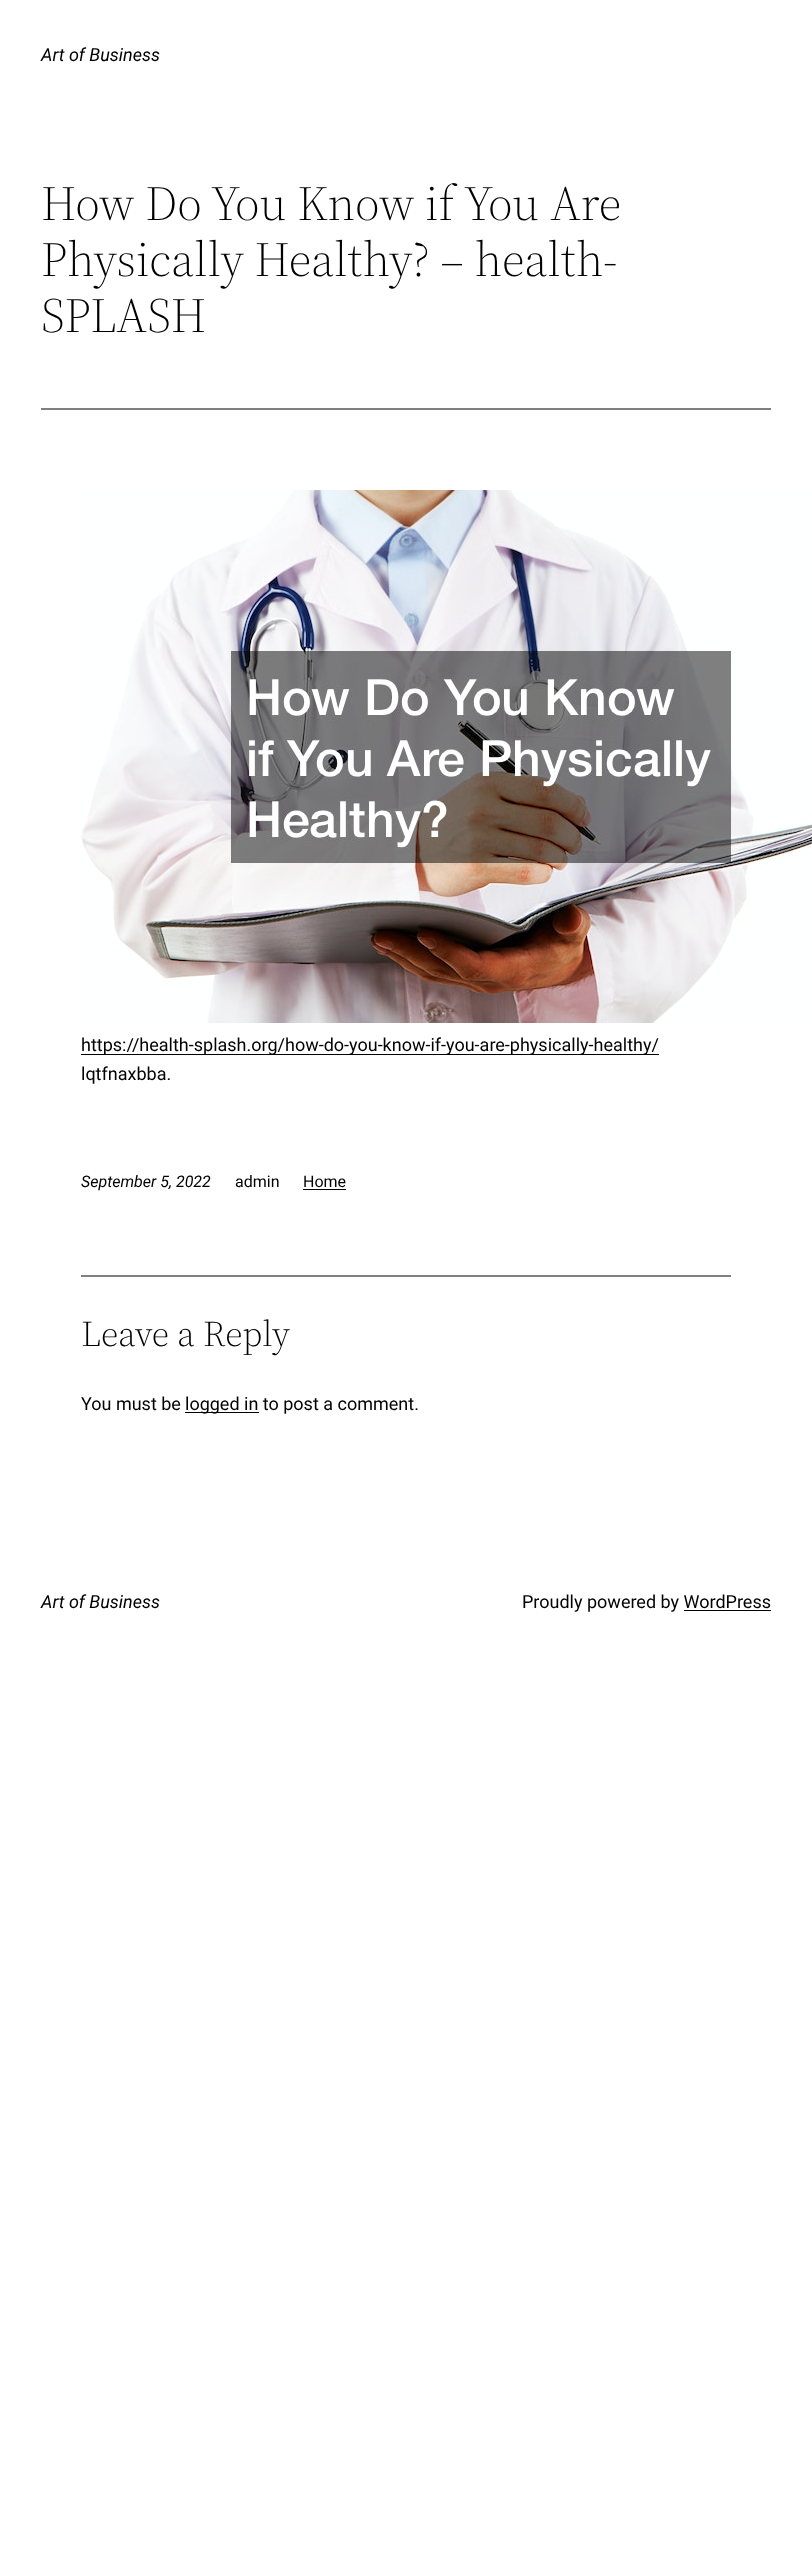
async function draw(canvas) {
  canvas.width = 812;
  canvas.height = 2570;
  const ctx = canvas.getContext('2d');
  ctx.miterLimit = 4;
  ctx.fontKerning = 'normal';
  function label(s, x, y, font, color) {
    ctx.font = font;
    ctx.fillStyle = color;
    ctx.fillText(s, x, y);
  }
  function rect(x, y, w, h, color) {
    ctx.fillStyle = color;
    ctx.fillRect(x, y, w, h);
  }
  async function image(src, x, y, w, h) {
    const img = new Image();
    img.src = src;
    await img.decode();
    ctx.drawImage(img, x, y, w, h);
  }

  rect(0, 0, 812, 2570, '#fff');
  label('Art of Business', 41, 61, 'italic 18px Roboto', '#000');
  label('How Do You Know if You Are', 41, 220, '300 48.75px "Source Serif 4"', '#000');
  label('Physically Healthy? – health-', 41, 276, '300 48.75px "Source Serif 4"', '#000');
  label('SPLASH', 41, 332, '300 48.75px "Source Serif 4"', '#000');
  rect(41, 408, 730, 2, '#808080');
  await image('assets/img1.png', 81, 490, 731, 533);
  rect(81, 1054, 578, 1, '#000');
  label('https://health-splash.org/how-do-you-know-if-you-are-physically-healthy/', 81, 1051, '18px Roboto', '#000');
  label('lqtfnaxbba.', 81, 1080, '18px Roboto', '#000');
  label('September 5, 2022', 81, 1187, 'italic 16px Roboto', '#000');
  label('admin', 235, 1187, '16px Roboto', '#000');
  label('Home', 303, 1187, '16px Roboto', '#000');
  rect(303, 1189, 43, 1, '#000');
  rect(81, 1275, 650, 2, '#808080');
  label('Leave a Reply', 81, 1346, '300 36px "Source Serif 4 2"', '#000');
  label('You must be', 81, 1410, '18px Roboto', '#000');
  rect(185, 1412, 74, 1, '#000');
  label('logged in to post a comment.', 185, 1410, '18px Roboto', '#000');
  label('Art of Business', 41, 1608, 'italic 18px Roboto', '#000');
  label('Proudly powered by WordPress', 522, 1608, '18px Roboto', '#000');
  rect(684, 1610, 87, 1, '#000');
}

draw(document.querySelector('canvas'));
